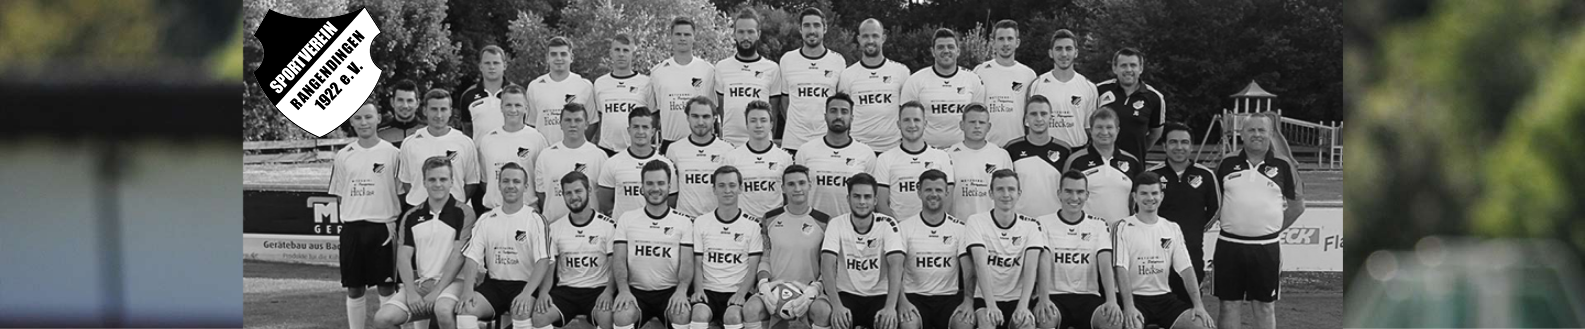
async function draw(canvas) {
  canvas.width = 1585;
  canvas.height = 329;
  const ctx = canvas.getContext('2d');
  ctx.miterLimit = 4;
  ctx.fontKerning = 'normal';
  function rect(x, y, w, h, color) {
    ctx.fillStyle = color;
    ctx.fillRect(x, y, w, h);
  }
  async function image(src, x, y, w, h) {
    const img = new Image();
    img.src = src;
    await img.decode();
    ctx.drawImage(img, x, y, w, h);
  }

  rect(0, 0, 1585, 329, '#fff');
  await image('assets/img1.png', 0, 0, 1585, 329);
  await image('assets/img2.png', 242, 0, 1101, 329);
  await image('assets/img3.png', 253, 6, 130, 132);
}

draw(document.querySelector('canvas'));
